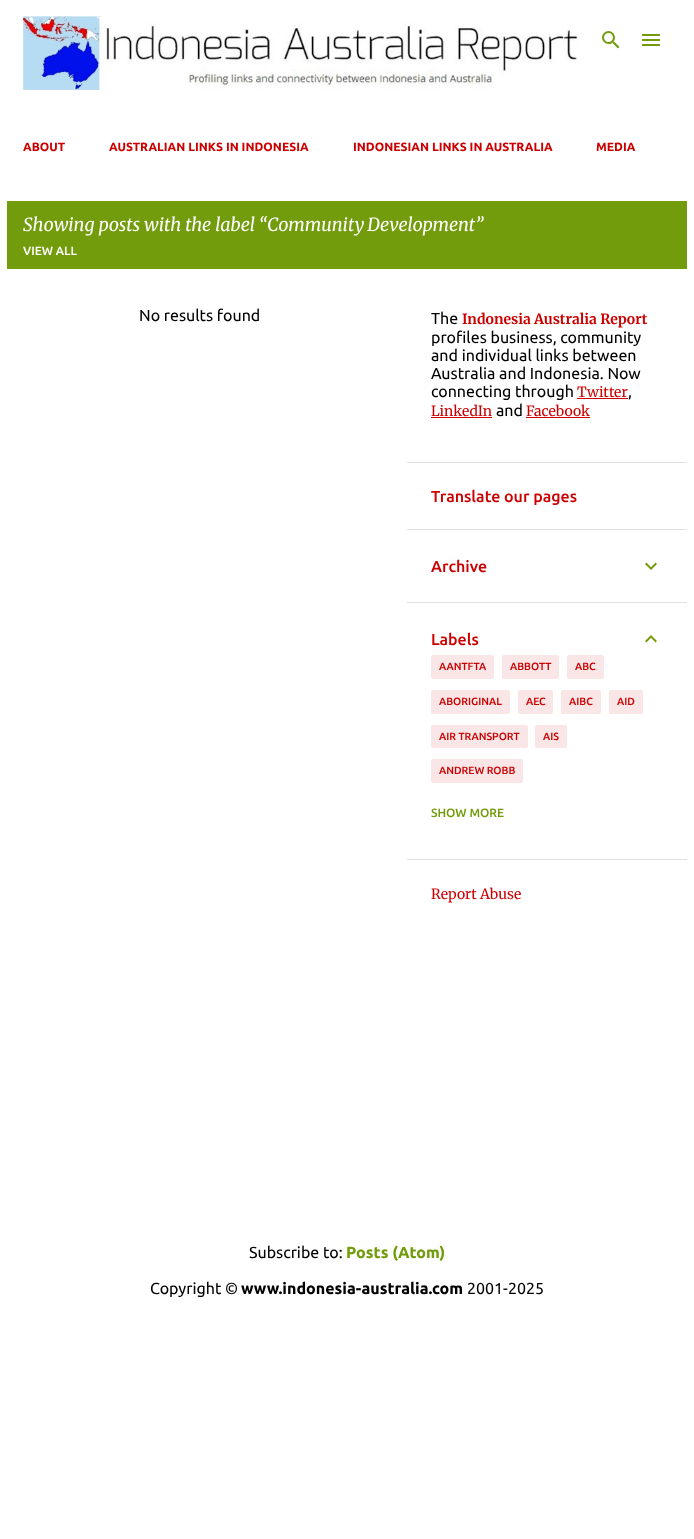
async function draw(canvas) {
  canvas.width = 694;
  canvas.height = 1539;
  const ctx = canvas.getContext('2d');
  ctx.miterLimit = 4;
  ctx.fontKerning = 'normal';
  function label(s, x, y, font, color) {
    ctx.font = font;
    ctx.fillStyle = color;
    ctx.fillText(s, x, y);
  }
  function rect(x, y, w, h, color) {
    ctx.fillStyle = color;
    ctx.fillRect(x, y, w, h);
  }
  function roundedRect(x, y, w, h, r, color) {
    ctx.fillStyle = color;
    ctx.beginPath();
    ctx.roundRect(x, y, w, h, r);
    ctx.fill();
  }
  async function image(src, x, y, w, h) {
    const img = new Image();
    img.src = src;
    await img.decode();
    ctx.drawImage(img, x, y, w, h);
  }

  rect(0, 0, 694, 1539, '#fff');
  await image('assets/img1.png', 23, 16, 555, 74);
  await image('assets/img2.png', 602, 31, 18, 18);
  await image('assets/img3.png', 642, 34, 18, 12);
  label('ABOUT', 23, 151, 'bold 12px Ubuntu', '#c00');
  label('AUSTRALIAN LINKS IN INDONESIA', 109, 151, 'bold 12px Ubuntu', '#c00');
  label('INDONESIAN LINKS IN AUSTRALIA', 353, 151, 'bold 12px Ubuntu', '#c00');
  label('MEDIA', 596, 151, 'bold 12px Ubuntu', '#c00');
  rect(7, 201, 680, 68, '#729c0b');
  label('Showing posts with the label “', 23, 231, 'italic 18px Merriweather', '#fff');
  ctx.wordSpacing = '-1px';
  label('Community Development', 267, 231, 'italic 18px Merriweather', '#fff');
  ctx.wordSpacing = '0px';
  label('”', 475, 231, 'italic 18px Merriweather', '#fff');
  label('VIEW ALL', 23, 255, '500 12px Ubuntu', '#fff');
  label('No results found', 139, 321, '16px Ubuntu', '#000');
  label('The', 431, 324, '16px Ubuntu', '#000');
  label('Indonesia Australia Report', 462, 324, 'bold 14px Merriweather', '#c00');
  label('profiles business, community', 431, 343, '16px Ubuntu', '#000');
  label('and individual links between', 431, 361, '16px Ubuntu', '#000');
  label('Australia and Indonesia. Now', 431, 379, '16px Ubuntu', '#000');
  label('connecting through', 431, 397, '16px Ubuntu', '#000');
  label('Twitter', 577, 397, '14px Merriweather', '#c00');
  label(',', 628, 397, '16px Ubuntu', '#000');
  rect(577, 398, 51, 1, '#c00');
  label('LinkedIn', 431, 416, '14px Merriweather', '#c00');
  rect(431, 417, 61, 1, '#c00');
  label('and', 496, 416, '16px Ubuntu', '#000');
  label('Facebook', 526, 416, '14px Merriweather', '#c00');
  rect(526, 417, 64, 1, '#c00');
  rect(407, 462, 280, 1, '#e0e0e0');
  label('Translate our pages', 431, 502, '500 16px Ubuntu', '#c00');
  rect(407, 529, 280, 1, '#e0e0e0');
  label('Archive', 431, 572, '500 16px Ubuntu', '#c00');
  await image('assets/img4.png', 645, 562, 12, 8);
  rect(407, 602, 280, 1, '#e0e0e0');
  label('Labels', 431, 645, '500 16px Ubuntu', '#c00');
  await image('assets/img5.png', 645, 635, 12, 8);
  roundedRect(431, 655, 63, 24, 2, '#fae6e6');
  label('AANTFTA', 439, 670, '500 10.5px Ubuntu', '#c00');
  roundedRect(502, 655, 57, 24, 2, '#fae6e6');
  label('ABBOTT', 510, 670, '500 10.5px Ubuntu', '#c00');
  roundedRect(567, 655, 37, 24, 2, '#fae6e6');
  label('ABC', 575, 670, '500 10.5px Ubuntu', '#c00');
  roundedRect(431, 690, 79, 24, 2, '#fae6e6');
  label('ABORIGINAL', 439, 705, '500 10.5px Ubuntu', '#c00');
  roundedRect(518, 690, 35, 24, 2, '#fae6e6');
  label('AEC', 526, 705, '500 10.5px Ubuntu', '#c00');
  roundedRect(561, 690, 40, 24, 2, '#fae6e6');
  label('AIBC', 569, 705, '500 10.5px Ubuntu', '#c00');
  roundedRect(609, 690, 34, 24, 2, '#fae6e6');
  label('AID', 617, 705, '500 10.5px Ubuntu', '#c00');
  roundedRect(431, 725, 97, 23, 2, '#fae6e6');
  label('AIR TRANSPORT', 439, 740, '500 10.5px Ubuntu', '#c00');
  roundedRect(535, 725, 32, 23, 2, '#fae6e6');
  label('AIS', 543, 740, '500 10.5px Ubuntu', '#c00');
  roundedRect(431, 759, 92, 24, 2, '#fae6e6');
  label('ANDREW ROBB', 439, 774, '500 10.5px Ubuntu', '#c00');
  label('SHOW MORE', 431, 817, '500 12px Ubuntu', '#729c0b');
  rect(407, 859, 280, 1, '#e0e0e0');
  label('Report Abuse', 431, 899, '14px Merriweather', '#c00');
  label('Subscribe to:', 249, 1258, '16px Ubuntu', '#000');
  label('Posts (Atom)', 346, 1258, 'bold 16px Ubuntu', '#729c0b');
  label('Copyright ©', 150, 1294, '16px Ubuntu', '#000');
  label('www.indonesia-australia.com', 241, 1294, 'bold 16px Ubuntu', '#000');
  label('2001-2025', 467, 1294, '16px Ubuntu', '#000');
}

draw(document.querySelector('canvas'));
